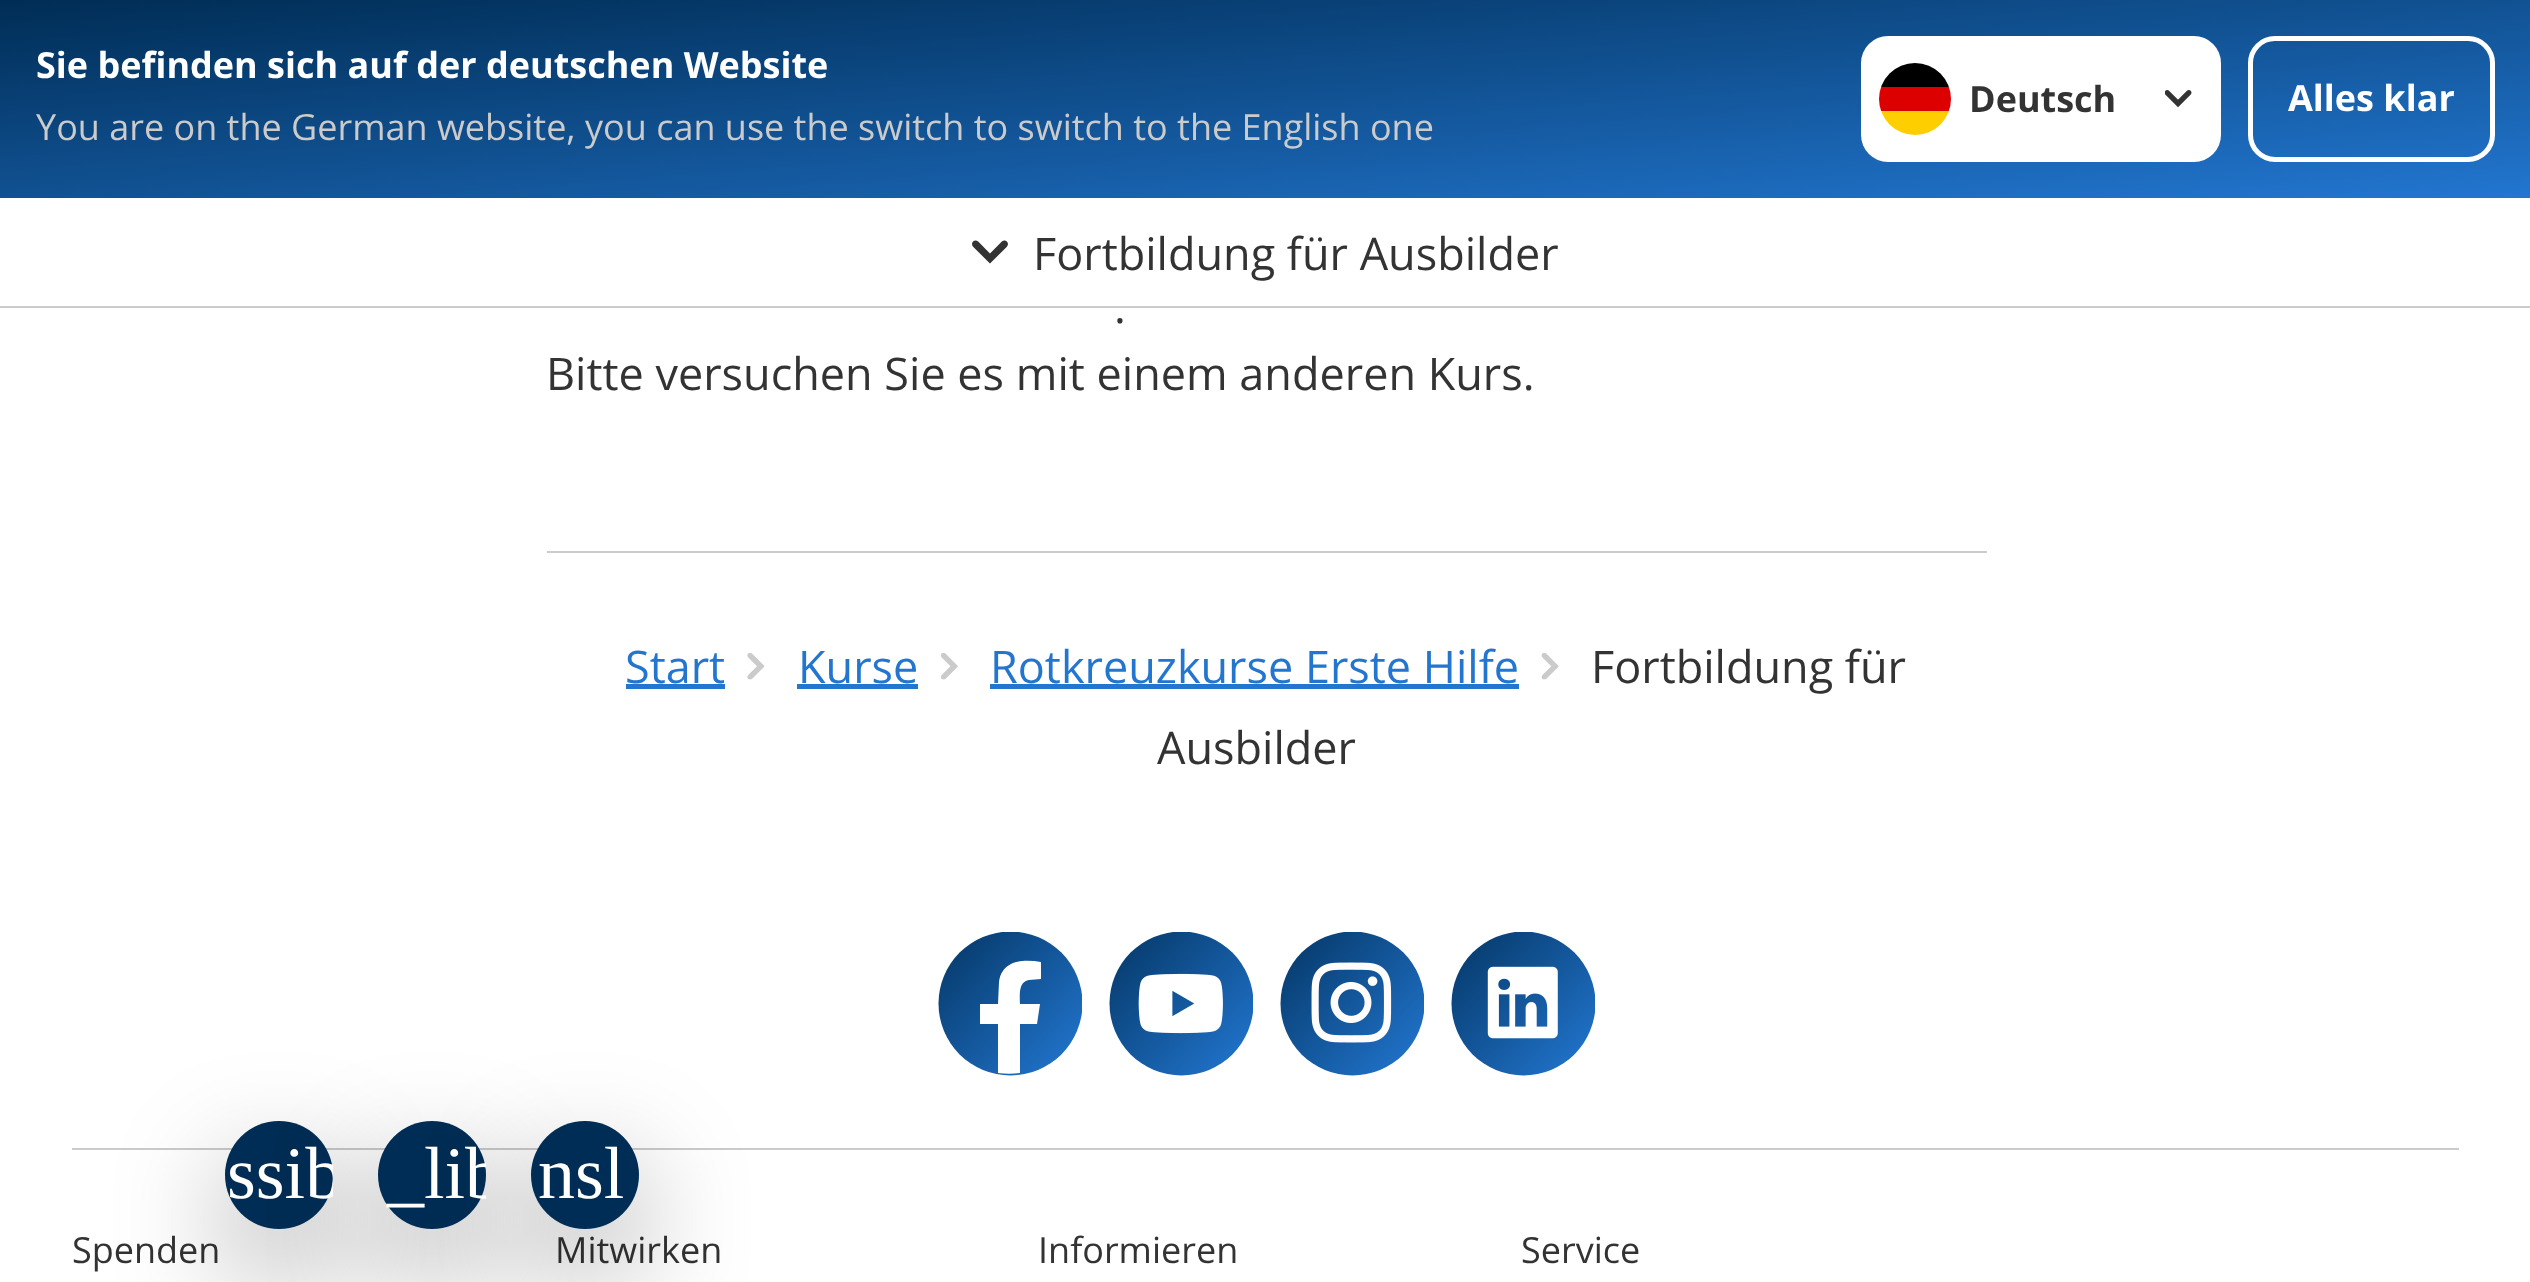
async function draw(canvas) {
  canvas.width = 2530;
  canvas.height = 1282;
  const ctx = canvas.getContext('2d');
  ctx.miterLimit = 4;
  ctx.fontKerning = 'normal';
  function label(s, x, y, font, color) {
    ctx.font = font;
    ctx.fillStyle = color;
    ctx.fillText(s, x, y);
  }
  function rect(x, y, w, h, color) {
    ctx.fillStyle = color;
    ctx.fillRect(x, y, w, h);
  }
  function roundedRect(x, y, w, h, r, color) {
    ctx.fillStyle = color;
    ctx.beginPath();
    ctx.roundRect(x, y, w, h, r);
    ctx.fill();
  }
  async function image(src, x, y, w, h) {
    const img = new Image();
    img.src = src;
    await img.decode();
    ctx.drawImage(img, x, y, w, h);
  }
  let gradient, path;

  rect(0, 0, 2530, 1282, '#fff');
  gradient = ctx.createLinearGradient(1250, -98, 1281, 296);
  gradient.addColorStop(0, '#002d55');
  gradient.addColorStop(1, '#2276d0');
  ctx.fillStyle = gradient;
  ctx.fillRect(0, 0, 2530, 198);
  label('Sie befinden sich auf der deutschen Website', 36, 78, 'bold 36px Open Sans', '#fff');
  label('You are on the German website, you can use the switch to switch to the English one', 36, 140, '36px Open Sans', '#cbcbcb');
  roundedRect(1861, 36, 360, 126, 27, '#fff');
  ctx.save();
  ctx.beginPath();
  ctx.roundRect(1879, 63, 72, 72, 36);
  ctx.clip();
  rect(1881, 111, 68, 24, '#ffce00');
  rect(1881, 63, 68, 24, '#000');
  rect(1879, 87, 72, 24, '#d00');
  ctx.restore();
  await image('assets/img1.png', 2165, 90, 27, 18);
  label('Deutsch', 1969, 112, 'bold 36px Open Sans', '#333');
  ctx.beginPath();
  ctx.roundRect(2250.5, 38.5, 242, 121, 24.5);
  ctx.strokeStyle = '#fff';
  ctx.lineWidth = 5;
  ctx.stroke();
  label('Alles klar', 2288, 111, 'bold 36px Open Sans', '#fff');
  rect(0, 306, 2530, 2, '#cbcbcb');
  await image('assets/img2.png', 972, 240, 36, 24);
  label('Fortbildung für Ausbilder', 1033, 270, '45px Open Sans', '#333');
  label('.', 1114, 323, '45px Open Sans', '#333');
  label('Bitte versuchen Sie es mit einem anderen Kurs.', 546, 390, '45px Open Sans', '#333');
  rect(547, 551, 1440, 2, '#cbcbcb');
  label('Start', 625, 683, '45px Open Sans', '#2276d0');
  rect(626, 684, 99, 5, '#2276d0');
  await image('assets/img3.png', 747, 653, 18, 27);
  label('Kurse', 798, 683, '45px Open Sans', '#2276d0');
  rect(797, 684, 121, 5, '#2276d0');
  await image('assets/img4.png', 940, 653, 18, 27);
  label('Rotkreuzkurse Erste Hilfe', 990, 683, '45px Open Sans', '#2276d0');
  rect(990, 684, 529, 5, '#2276d0');
  await image('assets/img5.png', 1541, 653, 18, 27);
  label('Fortbildung für', 1591, 683, '45px Open Sans', '#333');
  label('Ausbilder', 1157, 764, '45px Open Sans', '#333');
  ctx.save();
  ctx.beginPath();
  ctx.rect(938, 932, 144, 144);
  ctx.clip();
  gradient = ctx.createLinearGradient(920, 910, 1083, 1065);
  gradient.addColorStop(0, '#002d55');
  gradient.addColorStop(1, '#2276d0');
  ctx.fillStyle = gradient;
  ctx.beginPath();
  ctx.arc(1010.5, 1003.5, 72, 0, 2 * Math.PI);
  ctx.fill();
  ctx.restore();
  ctx.fillStyle = '#fff';
  path = new Path2D('M998 1073V1024H980V1004H998L999 982C1002 960 1023 959 1041 962V979L1029 980C1018 982 1020 995 1020 1004H1040L1037 1024H1020V1073C1013 1074 1005 1074 998 1073ZM958 955C977 934 1009 927 1036 938C1009 927 977 934 958 955Z');
  ctx.fill(path, 'evenodd');
  ctx.save();
  ctx.beginPath();
  ctx.rect(1109, 932, 144, 144);
  ctx.clip();
  gradient = ctx.createLinearGradient(1091, 910, 1254, 1065);
  gradient.addColorStop(0, '#002d55');
  gradient.addColorStop(1, '#2276d0');
  ctx.fillStyle = gradient;
  ctx.beginPath();
  ctx.arc(1181.5, 1003.5, 72, 0, 2 * Math.PI);
  ctx.fill();
  ctx.restore();
  await image('assets/img6.png', 1138, 973, 85, 61);
  ctx.save();
  ctx.beginPath();
  ctx.rect(1280, 932, 144, 144);
  ctx.clip();
  gradient = ctx.createLinearGradient(1262, 910, 1425, 1065);
  gradient.addColorStop(0, '#002d55');
  gradient.addColorStop(1, '#2276d0');
  ctx.fillStyle = gradient;
  ctx.beginPath();
  ctx.arc(1352.5, 1003.5, 72, 0, 2 * Math.PI);
  ctx.fill();
  ctx.restore();
  await image('assets/img7.png', 1311, 962, 81, 81);
  ctx.save();
  ctx.beginPath();
  ctx.rect(1451, 932, 144, 144);
  ctx.clip();
  gradient = ctx.createLinearGradient(1433, 910, 1596, 1065);
  gradient.addColorStop(0, '#002d55');
  gradient.addColorStop(1, '#2276d0');
  ctx.fillStyle = gradient;
  ctx.beginPath();
  ctx.arc(1523.5, 1003.5, 72, 0, 2 * Math.PI);
  ctx.fill();
  ctx.restore();
  await image('assets/img8.png', 1487, 966, 71, 73);
  rect(72, 1148, 2387, 2, '#cbcbcb');
  label('Spenden', 72, 1263, '36px Open Sans', '#333');
  label('Mitwirken', 555, 1263, '36px Open Sans', '#333');
  label('Informieren', 1038, 1263, '36px Open Sans', '#333');
  label('Service', 1521, 1263, '36px Open Sans', '#333');
  ctx.fillStyle = '#00000059';
  ctx.filter = 'blur(57.5px)';
  ctx.beginPath();
  ctx.roundRect(225, 1166, 108, 108, 54);
  ctx.fill();
  ctx.filter = 'none';
  ctx.fillStyle = '#002d55';
  ctx.beginPath();
  ctx.arc(279, 1175, 54, 0, 2 * Math.PI);
  ctx.fill();
  ctx.fillStyle = '#00000059';
  ctx.filter = 'blur(57.5px)';
  ctx.beginPath();
  ctx.roundRect(378, 1166, 108, 108, 54);
  ctx.fill();
  ctx.filter = 'none';
  ctx.save();
  ctx.beginPath();
  ctx.rect(225, 1121, 108, 108);
  ctx.clip();
  label('ssib', 227, 1198, '74px Liberation Serif', '#fff');
  ctx.restore();
  ctx.fillStyle = '#002d55';
  ctx.beginPath();
  ctx.arc(432, 1175, 54, 0, 2 * Math.PI);
  ctx.fill();
  ctx.fillStyle = '#00000059';
  ctx.filter = 'blur(57.5px)';
  ctx.beginPath();
  ctx.roundRect(531, 1166, 108, 108, 54);
  ctx.fill();
  ctx.filter = 'none';
  ctx.save();
  ctx.beginPath();
  ctx.rect(378, 1121, 108, 108);
  ctx.clip();
  label('_lib', 387, 1198, '74px Liberation Serif', '#fff');
  ctx.restore();
  ctx.fillStyle = '#002d55';
  ctx.beginPath();
  ctx.arc(585, 1175, 54, 0, 2 * Math.PI);
  ctx.fill();
  label('nsl', 538, 1198, '74px Liberation Serif', '#fff');
}

draw(document.querySelector('canvas'));
